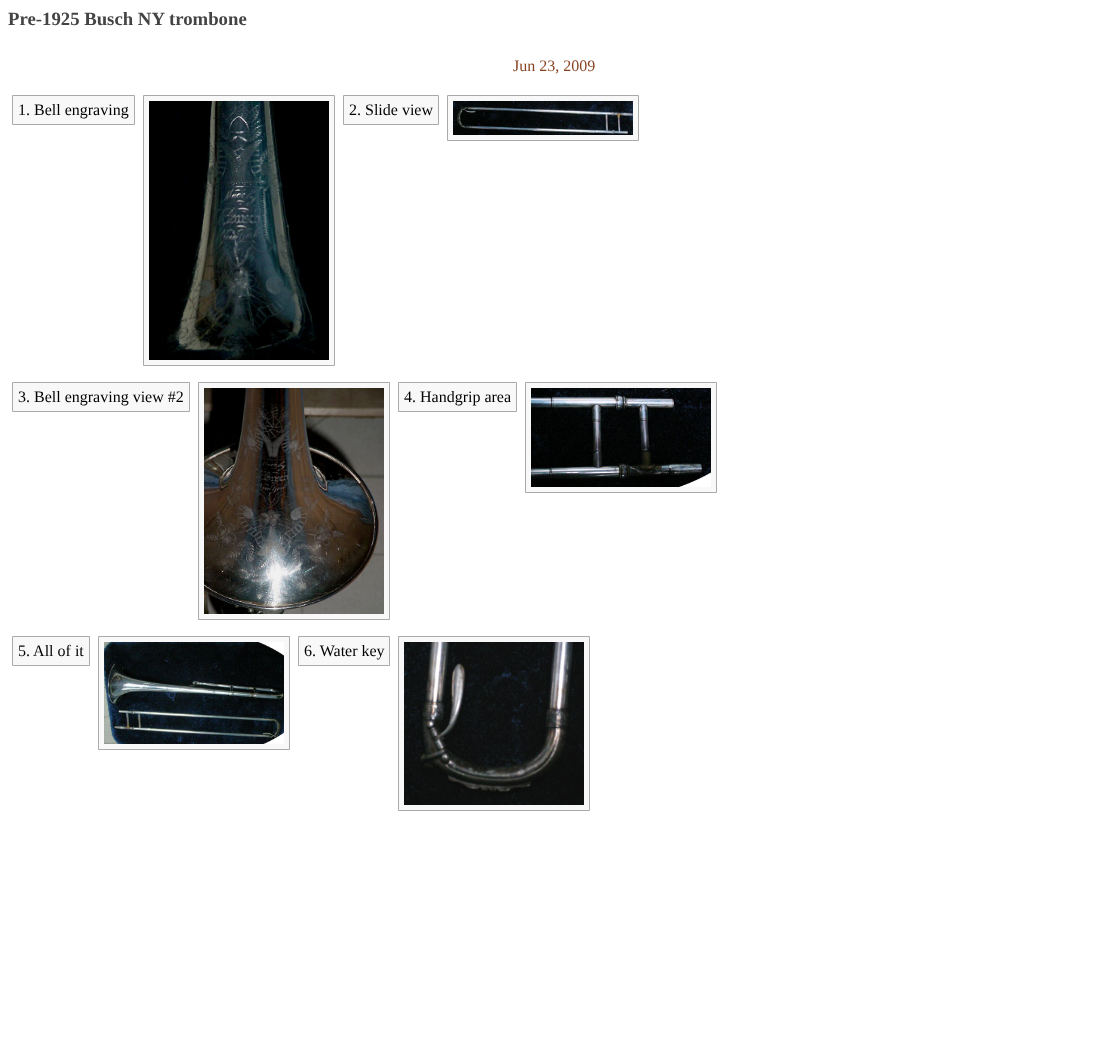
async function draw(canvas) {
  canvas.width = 1108;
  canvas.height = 1061;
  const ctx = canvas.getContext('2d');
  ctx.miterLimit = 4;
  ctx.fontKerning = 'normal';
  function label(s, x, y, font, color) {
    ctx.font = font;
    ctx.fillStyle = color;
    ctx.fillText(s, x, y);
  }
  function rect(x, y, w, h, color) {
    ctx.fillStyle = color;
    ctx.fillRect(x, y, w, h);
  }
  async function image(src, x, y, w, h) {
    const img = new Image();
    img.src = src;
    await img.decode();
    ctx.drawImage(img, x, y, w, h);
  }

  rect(0, 0, 1108, 1061, '#fff');
  label('Pre-1925 Busch NY trombone', 8, 25, 'bold 18.75px Liberation Serif', '#444');
  label('Jun 23, 2009', 513, 71, '16px Liberation Serif', '#842');
  ctx.fillStyle = '#f8f8f8';
  ctx.beginPath();
  ctx.rect(12.5, 95.5, 122, 29);
  ctx.fill();
  ctx.strokeStyle = '#aaa';
  ctx.stroke();
  label('1. Bell engraving', 18, 115, '16px Liberation Serif', '#000');
  ctx.fillStyle = '#f8f8f8';
  ctx.beginPath();
  ctx.rect(143.5, 95.5, 191, 270);
  ctx.fill();
  ctx.stroke();
  await image('assets/img1.png', 149, 101, 180, 259);
  ctx.beginPath();
  ctx.rect(343.5, 95.5, 95, 29);
  ctx.fill();
  ctx.stroke();
  label('2. Slide view', 349, 115, '16px Liberation Serif', '#000');
  ctx.fillStyle = '#f8f8f8';
  ctx.beginPath();
  ctx.rect(447.5, 95.5, 191, 45);
  ctx.fill();
  ctx.stroke();
  await image('assets/img2.png', 453, 101, 180, 34);
  ctx.beginPath();
  ctx.rect(12.5, 382.5, 177, 29);
  ctx.fill();
  ctx.stroke();
  label('3. Bell engraving view #2', 18, 402, '16px Liberation Serif', '#000');
  ctx.fillStyle = '#f8f8f8';
  ctx.beginPath();
  ctx.rect(198.5, 382.5, 191, 237);
  ctx.fill();
  ctx.stroke();
  await image('assets/img3.png', 204, 388, 180, 226);
  ctx.beginPath();
  ctx.rect(398.5, 382.5, 118, 29);
  ctx.fill();
  ctx.stroke();
  label('4. Handgrip area', 404, 402, '16px Liberation Serif', '#000');
  ctx.fillStyle = '#f8f8f8';
  ctx.beginPath();
  ctx.rect(525.5, 382.5, 191, 110);
  ctx.fill();
  ctx.stroke();
  await image('assets/img4.png', 531, 388, 180, 99);
  ctx.beginPath();
  ctx.rect(12.5, 636.5, 77, 29);
  ctx.fill();
  ctx.stroke();
  label('5. All of it', 18, 656, '16px Liberation Serif', '#000');
  ctx.fillStyle = '#f8f8f8';
  ctx.beginPath();
  ctx.rect(98.5, 636.5, 191, 113);
  ctx.fill();
  ctx.stroke();
  await image('assets/img5.png', 104, 642, 180, 102);
  ctx.beginPath();
  ctx.rect(298.5, 636.5, 91, 29);
  ctx.fill();
  ctx.stroke();
  label('6. Water key', 304, 656, '16px Liberation Serif', '#000');
  ctx.fillStyle = '#f8f8f8';
  ctx.beginPath();
  ctx.rect(398.5, 636.5, 191, 174);
  ctx.fill();
  ctx.stroke();
  await image('assets/img6.png', 404, 642, 180, 163);
}

draw(document.querySelector('canvas'));
